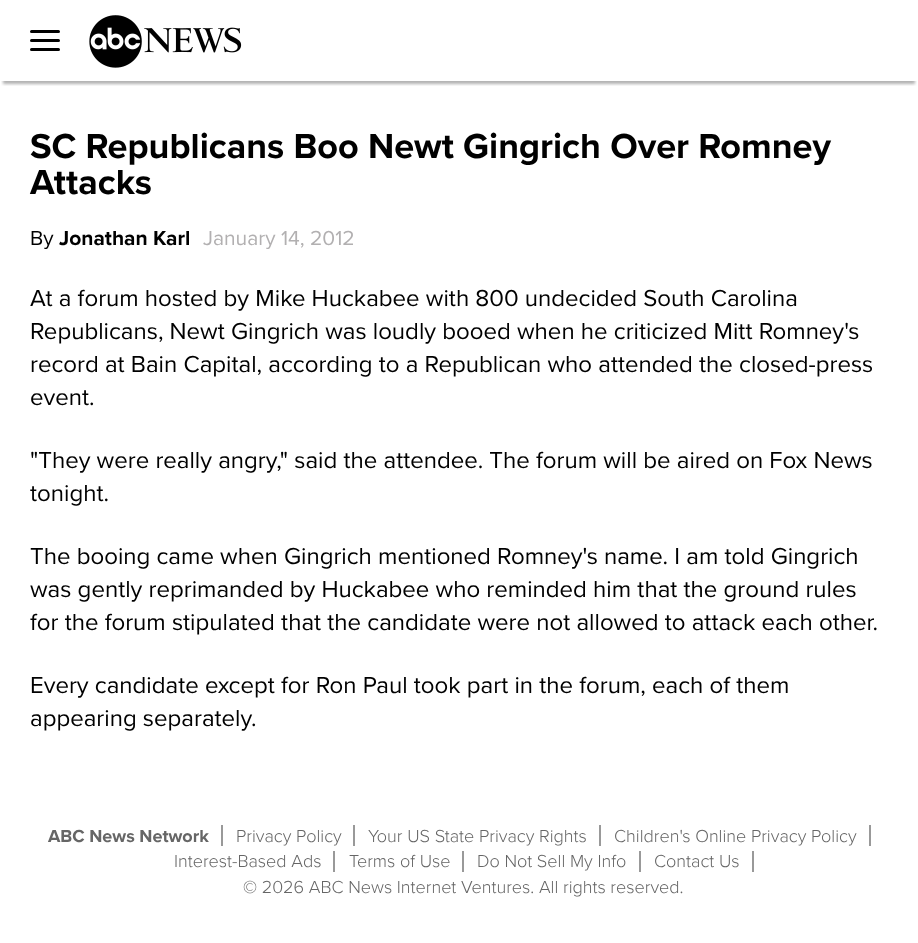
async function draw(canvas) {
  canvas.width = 918;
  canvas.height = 943;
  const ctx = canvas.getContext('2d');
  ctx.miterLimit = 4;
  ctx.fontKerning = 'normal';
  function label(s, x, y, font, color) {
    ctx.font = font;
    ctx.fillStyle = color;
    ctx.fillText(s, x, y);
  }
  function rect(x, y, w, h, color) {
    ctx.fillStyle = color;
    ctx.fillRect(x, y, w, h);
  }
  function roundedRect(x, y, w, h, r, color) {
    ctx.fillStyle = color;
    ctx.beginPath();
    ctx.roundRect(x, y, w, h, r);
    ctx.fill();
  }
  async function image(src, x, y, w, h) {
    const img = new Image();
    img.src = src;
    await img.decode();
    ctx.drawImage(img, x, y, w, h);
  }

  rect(0, 0, 918, 943, '#fff');
  ctx.save();
  ctx.beginPath();
  ctx.rect(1, 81, 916, 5);
  ctx.clip();
  ctx.fillStyle = '#0000004d';
  ctx.filter = 'blur(1.5px)';
  ctx.beginPath();
  ctx.rect(3, 9, 912, 75);
  ctx.fill();
  ctx.filter = 'none';
  ctx.restore();
  roundedRect(30, 39, 30, 3, 1.5, '#000');
  roundedRect(30, 30, 30, 3, 1.5, '#000');
  roundedRect(30, 48, 30, 3, 1.5, '#000');
  await image('assets/img1.png', 89, 15, 153, 53);
  label('SC Republicans Boo Newt Gingrich Over Romney', 30, 158, 'bold 36px Proxima Nova', '#000');
  label('Attacks', 30, 194, 'bold 36px Proxima Nova', '#000');
  label('By', 30, 245, '21px Proxima Nova', '#000');
  label('Jonathan Karl', 59, 245, 'bold 21px Proxima Nova', '#000');
  label('January 14, 2012', 203, 245, '21px Proxima Nova', '#b2b0b1');
  label('At a forum hosted by Mike Huckabee with 800 undecided South Carolina', 30, 306, '24px Proxima Nova', '#000');
  label('Republicans, Newt Gingrich was loudly booed when he criticized Mitt Romney\'s', 30, 339, '24px Proxima Nova', '#000');
  label('record at Bain Capital, according to a Republican who attended the closed-press', 30, 372, '24px Proxima Nova', '#000');
  label('event.', 30, 405, '24px Proxima Nova', '#000');
  label('"They were really angry," said the attendee. The forum will be aired on Fox News', 30, 468, '24px Proxima Nova', '#000');
  label('tonight.', 30, 501, '24px Proxima Nova', '#000');
  label('The booing came when Gingrich mentioned Romney\'s name. I am told Gingrich', 30, 564, '24px Proxima Nova', '#000');
  label('was gently reprimanded by Huckabee who reminded him that the ground rules', 30, 597, '24px Proxima Nova', '#000');
  label('for the forum stipulated that the candidate were not allowed to attack each other.', 30, 630, '24px Proxima Nova', '#000');
  label('Every candidate except for Ron Paul took part in the forum, each of them', 30, 693, '24px Proxima Nova', '#000');
  label('appearing separately.', 30, 726, '24px Proxima Nova', '#000');
  rect(221, 825, 2, 21, '#999');
  label('ABC News Network', 48, 842, 'bold 18px Proxima Nova', '#666');
  rect(353, 825, 2, 21, '#999');
  label('Privacy Policy', 236, 842, '300 18px Proxima Nova', '#666');
  rect(599, 825, 2, 21, '#999');
  label('Your US State Privacy Rights', 368, 842, '300 18px Proxima Nova', '#666');
  rect(869, 825, 2, 21, '#999');
  label('Children\'s Online Privacy Policy', 614, 842, '300 18px Proxima Nova', '#666');
  rect(333, 851, 2, 21, '#999');
  label('Interest-Based Ads', 174, 867, '300 18px Proxima Nova', '#666');
  rect(462, 851, 2, 21, '#999');
  label('Terms of Use', 349, 867, '300 18px Proxima Nova', '#666');
  rect(639, 851, 2, 21, '#999');
  label('Do Not Sell My Info', 477, 867, '300 18px Proxima Nova', '#666');
  rect(752, 851, 2, 21, '#999');
  label('Contact Us', 654, 867, '300 18px Proxima Nova', '#666');
  label('© 2026 ABC News Internet Ventures. All rights reserved.', 243, 893, '300 18px Proxima Nova', '#666');
}

draw(document.querySelector('canvas'));
